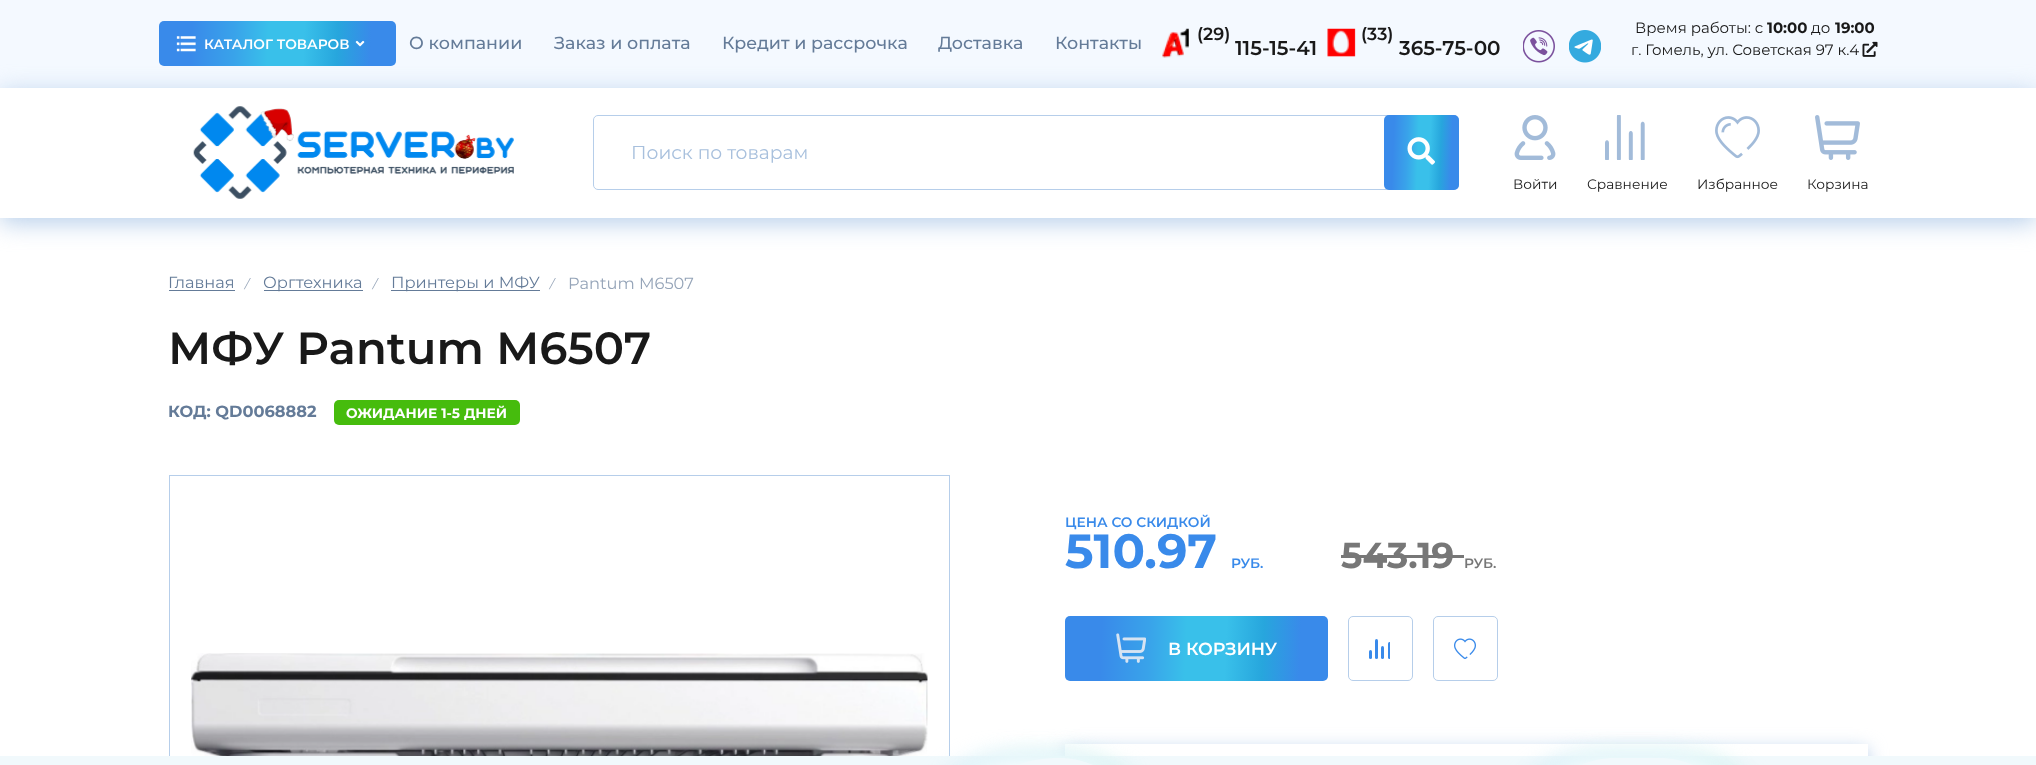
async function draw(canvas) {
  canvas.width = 2036;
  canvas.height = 765;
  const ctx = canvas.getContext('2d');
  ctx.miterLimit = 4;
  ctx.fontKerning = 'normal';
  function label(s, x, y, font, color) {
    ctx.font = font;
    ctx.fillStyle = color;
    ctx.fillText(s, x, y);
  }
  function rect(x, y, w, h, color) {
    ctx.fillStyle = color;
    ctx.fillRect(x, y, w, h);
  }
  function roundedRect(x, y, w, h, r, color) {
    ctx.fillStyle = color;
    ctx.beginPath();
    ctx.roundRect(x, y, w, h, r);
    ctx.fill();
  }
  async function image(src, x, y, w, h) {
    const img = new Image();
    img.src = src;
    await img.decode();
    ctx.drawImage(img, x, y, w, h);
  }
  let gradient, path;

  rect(0, 0, 2036, 765, '#fff');
  rect(0, 0, 2036, 88, '#f4f9ff');
  gradient = ctx.createLinearGradient(158, 39, 397, 49);
  gradient.addColorStop(0.14, '#398aea');
  gradient.addColorStop(0.32, '#39a3ea');
  gradient.addColorStop(0.46, '#39c0ea');
  gradient.addColorStop(0.61, '#39c0ea');
  gradient.addColorStop(0.75, '#27a6dd');
  gradient.addColorStop(0.89, '#398aea');
  ctx.fillStyle = gradient;
  ctx.beginPath();
  ctx.roundRect(159, 21, 237, 45, 5);
  ctx.fill();
  await image('assets/img1.png', 176, 36, 20, 16);
  label('КАТАЛОГ ТОВАРОВ', 204, 49, '600 13.75px Montserrat', '#fff');
  await image('assets/img2.png', 355, 40, 10, 7);
  label('О компании', 409, 49, '500 17.5px Montserrat', '#647b98');
  label('Заказ и оплата', 554, 49, '500 17.5px Montserrat', '#647b98');
  label('Кредит и рассрочка', 722, 49, '500 17.5px Montserrat', '#647b98');
  label('Доставка', 938, 49, '500 17.5px Montserrat', '#647b98');
  label('Контакты', 1055, 49, '500 17.5px Montserrat', '#647b98');
  await image('assets/img3.png', 1162, 28, 27, 30);
  label('(29)', 1197, 40, '600 17.5px Montserrat', '#191919');
  label('115-15-41', 1235, 55, '600 20px Montserrat', '#191919');
  await image('assets/img4.png', 1327, 28, 29, 29);
  label('(33)', 1361, 40, '600 17.5px Montserrat', '#191919');
  label('365-75-00', 1399, 55, '600 20px Montserrat', '#191919');
  await image('assets/img5.png', 1523, 30, 32, 33);
  await image('assets/img6.png', 1569, 30, 32, 33);
  label('Время работы: с', 1635, 33, '15px Montserrat', '#191919');
  label('10:00', 1767, 33, 'bold 15px Montserrat', '#191919');
  label('до', 1811, 33, '15px Montserrat', '#191919');
  label('19:00', 1835, 33, 'bold 15px Montserrat', '#191919');
  label('г. Гомель, ул. Советская 97 к.4', 1631, 55, '15px Montserrat', '#191919');
  await image('assets/img7.png', 1862, 41, 16, 16);
  ctx.fillStyle = '#b6ceea';
  ctx.filter = 'blur(12.5px)';
  ctx.beginPath();
  ctx.rect(0, 93, 2036, 130);
  ctx.fill();
  ctx.filter = 'none';
  rect(0, 88, 2036, 130, '#fff');
  await image('assets/img8.png', 193, 106, 321, 93);
  ctx.beginPath();
  ctx.roundRect(593.5, 115.5, 865, 74, 4.5);
  ctx.strokeStyle = '#b6ceea';
  ctx.stroke();
  label('Поиск по товарам', 631, 159, '18.75px Montserrat', '#a8c0dd');
  gradient = ctx.createLinearGradient(1382, 151, 1460, 154);
  gradient.addColorStop(0.14, '#398aea');
  gradient.addColorStop(0.32, '#39a3ea');
  gradient.addColorStop(0.46, '#39c0ea');
  gradient.addColorStop(0.61, '#39c0ea');
  gradient.addColorStop(0.75, '#27a6dd');
  gradient.addColorStop(0.89, '#398aea');
  ctx.fillStyle = gradient;
  ctx.beginPath();
  ctx.roundRect(1384, 115, 75, 75, 5);
  ctx.fill();
  await image('assets/img9.png', 1407, 137, 28, 28);
  await image('assets/img10.png', 1514, 115, 42, 45);
  label('Войти', 1513, 189, '13.75px Montserrat', '#191919');
  await image('assets/img11.png', 1605, 115, 40, 45);
  label('Сравнение', 1587, 189, '13.75px Montserrat', '#191919');
  await image('assets/img12.png', 1715, 116, 45, 43);
  label('Избранное', 1697, 189, '13.75px Montserrat', '#191919');
  await image('assets/img13.png', 1815, 115, 45, 45);
  label('Корзина', 1807, 189, '13.75px Montserrat', '#191919');
  label('Главная', 168, 288, '16.25px Montserrat', '#647b98');
  rect(169, 290, 66, 1, '#647b98');
  label('/', 245, 288, 'italic 12px Montserrat', '#95a4b8');
  rect(264, 290, 99, 1, '#647b98');
  label('Оргтехника', 263, 288, '16.25px Montserrat', '#647b98');
  label('/', 373, 288, 'italic 12px Montserrat', '#95a4b8');
  rect(391, 290, 149, 1, '#647b98');
  label('Принтеры и МФУ', 391, 288, '16.25px Montserrat', '#647b98');
  label('/', 550, 288, 'italic 12px Montserrat', '#95a4b8');
  label('Pantum M6507', 568, 289, '16.25px Montserrat', '#95a4b8');
  label('МФУ Pantum M6507', 168, 364, '600 45px Montserrat', '#191919');
  label('КОД: QD0068882', 168, 417, 'bold 16.25px Montserrat', '#647b98');
  roundedRect(334, 400, 186, 25, 5, '#46bc0d');
  label('ОЖИДАНИЕ 1-5 ДНЕЙ', 346, 418, 'bold 13.75px Montserrat', '#fff');
  ctx.strokeRect(169.5, 475.5, 780, 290);
  await image('assets/img14.png', 191, 653, 737, 103);
  label('ЦЕНА СО СКИДКОЙ', 1065, 527, '600 13.75px Montserrat', '#398aea');
  label('510.97', 1065, 568, 'bold 48px Montserrat', '#398aea');
  label('РУБ.', 1231, 568, '600 13.75px Montserrat', '#398aea');
  label('543.19', 1341, 568, 'bold 36px Montserrat', '#777');
  rect(1341, 555, 123, 3, '#777');
  label('РУБ.', 1464, 568, '600 13.75px Montserrat', '#777');
  gradient = ctx.createLinearGradient(1064, 643, 1329, 654);
  gradient.addColorStop(0.14, '#398aea');
  gradient.addColorStop(0.32, '#39a3ea');
  gradient.addColorStop(0.46, '#39c0ea');
  gradient.addColorStop(0.61, '#39c0ea');
  gradient.addColorStop(0.75, '#27a6dd');
  gradient.addColorStop(0.89, '#398aea');
  ctx.fillStyle = gradient;
  ctx.beginPath();
  ctx.roundRect(1065, 616, 263, 65, 5);
  ctx.fill();
  await image('assets/img15.png', 1116, 633, 30, 30);
  label('В КОРЗИНУ', 1168, 655, '600 17.5px Montserrat', '#fff');
  ctx.beginPath();
  ctx.roundRect(1348.5, 616.5, 64, 64, 4.5);
  ctx.stroke();
  roundedRect(1369, 650, 3, 9, 1.5, '#398aea');
  roundedRect(1375, 639, 3, 20, 1.5, '#398aea');
  roundedRect(1381, 646, 3, 13, 1.5, '#398aea');
  ctx.save();
  ctx.beginPath();
  ctx.rect(1369, 639, 21, 20);
  ctx.clip();
  roundedRect(1388, 642, 3, 17, 1.5, '#398aea');
  ctx.restore();
  ctx.beginPath();
  ctx.roundRect(1433.5, 616.5, 64, 64, 4.5);
  ctx.stroke();
  await image('assets/img16.png', 1454, 638, 22, 21);
  ctx.fillStyle = '#b6ceea';
  ctx.filter = 'blur(9px)';
  ctx.beginPath();
  ctx.rect(1065, 749, 803, 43);
  ctx.fill();
  ctx.filter = 'none';
  rect(1065, 744, 803, 12, '#fff');
  rect(0, 756, 2036, 9, '#f1f9fc');
  ctx.fillStyle = '#c5f2ed';
  ctx.filter = 'blur(12.5px)';
  ctx.beginPath();
  ctx.roundRect(944, 758, 215, 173, 128);
  ctx.fill();
  ctx.filter = 'none';
  ctx.fillStyle = '#c8ebf8';
  ctx.filter = 'blur(12.5px)';
  ctx.beginPath();
  ctx.roundRect(919, 758, 215, 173, 128);
  ctx.fill();
  ctx.filter = 'none';
  ctx.fillStyle = '#fff';
  ctx.filter = 'blur(12.5px)';
  ctx.beginPath();
  ctx.roundRect(931, 758, 215, 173, 128);
  ctx.fill();
  ctx.filter = 'none';
  ctx.fillStyle = '#f1f9fc';
  path = new Path2D('M1058.5 758C1107 758 1146 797 1146 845.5V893H931V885.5C931 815 988 758 1058.5 758Z');
  ctx.fill(path);
  ctx.fillStyle = '#c5f2ed';
  ctx.filter = 'blur(12.5px)';
  ctx.beginPath();
  ctx.roundRect(1541, 758, 217, 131, 86);
  ctx.fill();
  ctx.filter = 'none';
  ctx.fillStyle = '#c8ebf8';
  ctx.filter = 'blur(12.5px)';
  ctx.beginPath();
  ctx.roundRect(1516, 758, 217, 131, 86);
  ctx.fill();
  ctx.filter = 'none';
  ctx.fillStyle = '#fff';
  ctx.filter = 'blur(12.5px)';
  ctx.beginPath();
  ctx.roundRect(1529, 758, 216, 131, 86);
  ctx.fill();
  ctx.filter = 'none';
  ctx.fillStyle = '#f1f9fc';
  path = new Path2D('M1615 758H1659C1706.5 758 1745 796.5 1745 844V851H1529V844C1529 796.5 1567.5 758 1615 758Z');
  ctx.fill(path);
}

draw(document.querySelector('canvas'));
